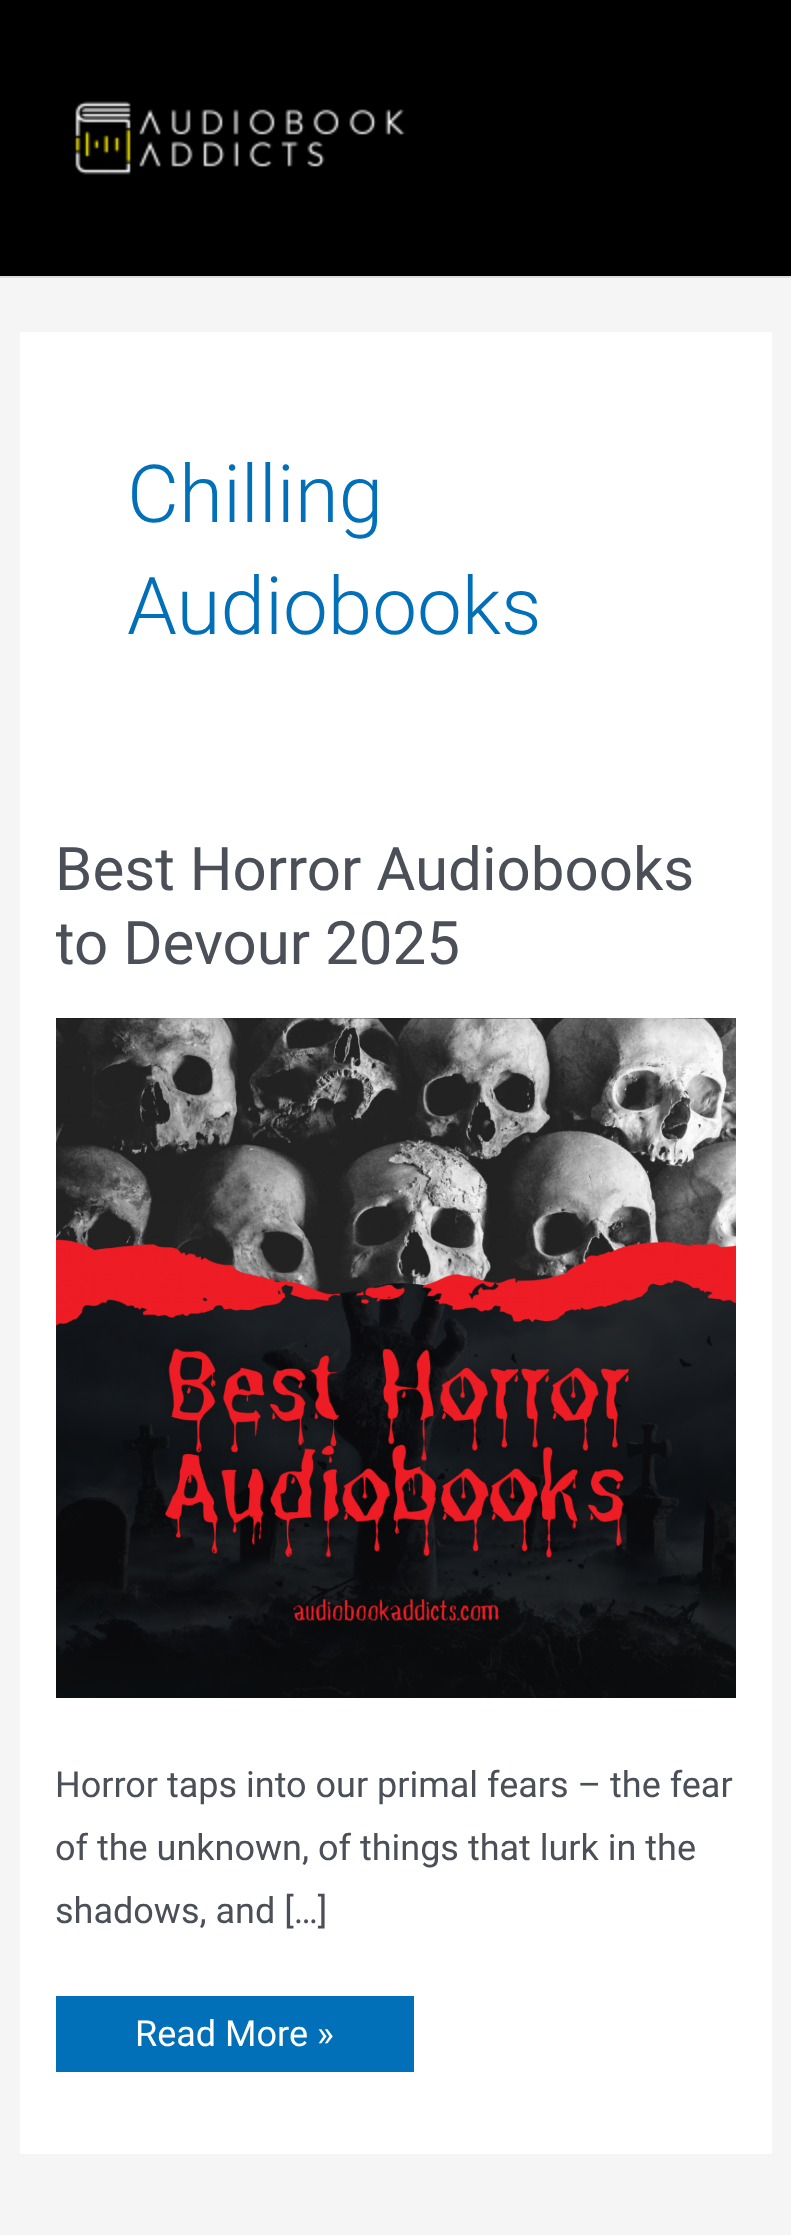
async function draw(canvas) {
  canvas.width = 791;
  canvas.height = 2235;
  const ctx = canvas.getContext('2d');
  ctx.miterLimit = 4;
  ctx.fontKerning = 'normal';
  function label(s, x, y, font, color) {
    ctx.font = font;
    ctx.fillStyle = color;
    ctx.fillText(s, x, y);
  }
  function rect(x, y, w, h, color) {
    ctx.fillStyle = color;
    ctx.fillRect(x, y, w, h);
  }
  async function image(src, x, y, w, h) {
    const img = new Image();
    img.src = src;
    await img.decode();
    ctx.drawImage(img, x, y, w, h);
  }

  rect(0, 0, 791, 2235, '#f5f5f5');
  rect(0, 0, 791, 276, '#000');
  rect(0, 276, 791, 2, '#ddd');
  await image('assets/img1.png', 75, 101, 330, 74);
  rect(20, 332, 752, 1822, '#fff');
  label('Chilling', 127, 522, '300 80px Roboto', '#0170b9');
  label('Audiobooks', 127, 634, '300 80px Roboto', '#0170b9');
  label('Best Horror Audiobooks', 55, 890, '60px Roboto', '#4b4f58');
  ctx.save();
  ctx.beginPath();
  ctx.rect(56, 834, 680, 1266);
  ctx.clip();
  label('to Devour 2025', 55, 964, '60px Roboto', '#4b4f58');
  ctx.restore();
  await image('assets/img2.png', 56, 1018, 680, 680);
  label('Horror taps into our primal fears – the fear', 55, 1797, '36px Roboto', '#4b4f58');
  label('of the unknown, of things that lurk in the', 55, 1860, '36px Roboto', '#4b4f58');
  label('shadows, and […]', 55, 1923, '36px Roboto', '#4b4f58');
  rect(56, 1996, 358, 76, '#0170b9');
  label('Read More »', 135, 2046, '36px Roboto', '#fff');
}

draw(document.querySelector('canvas'));
